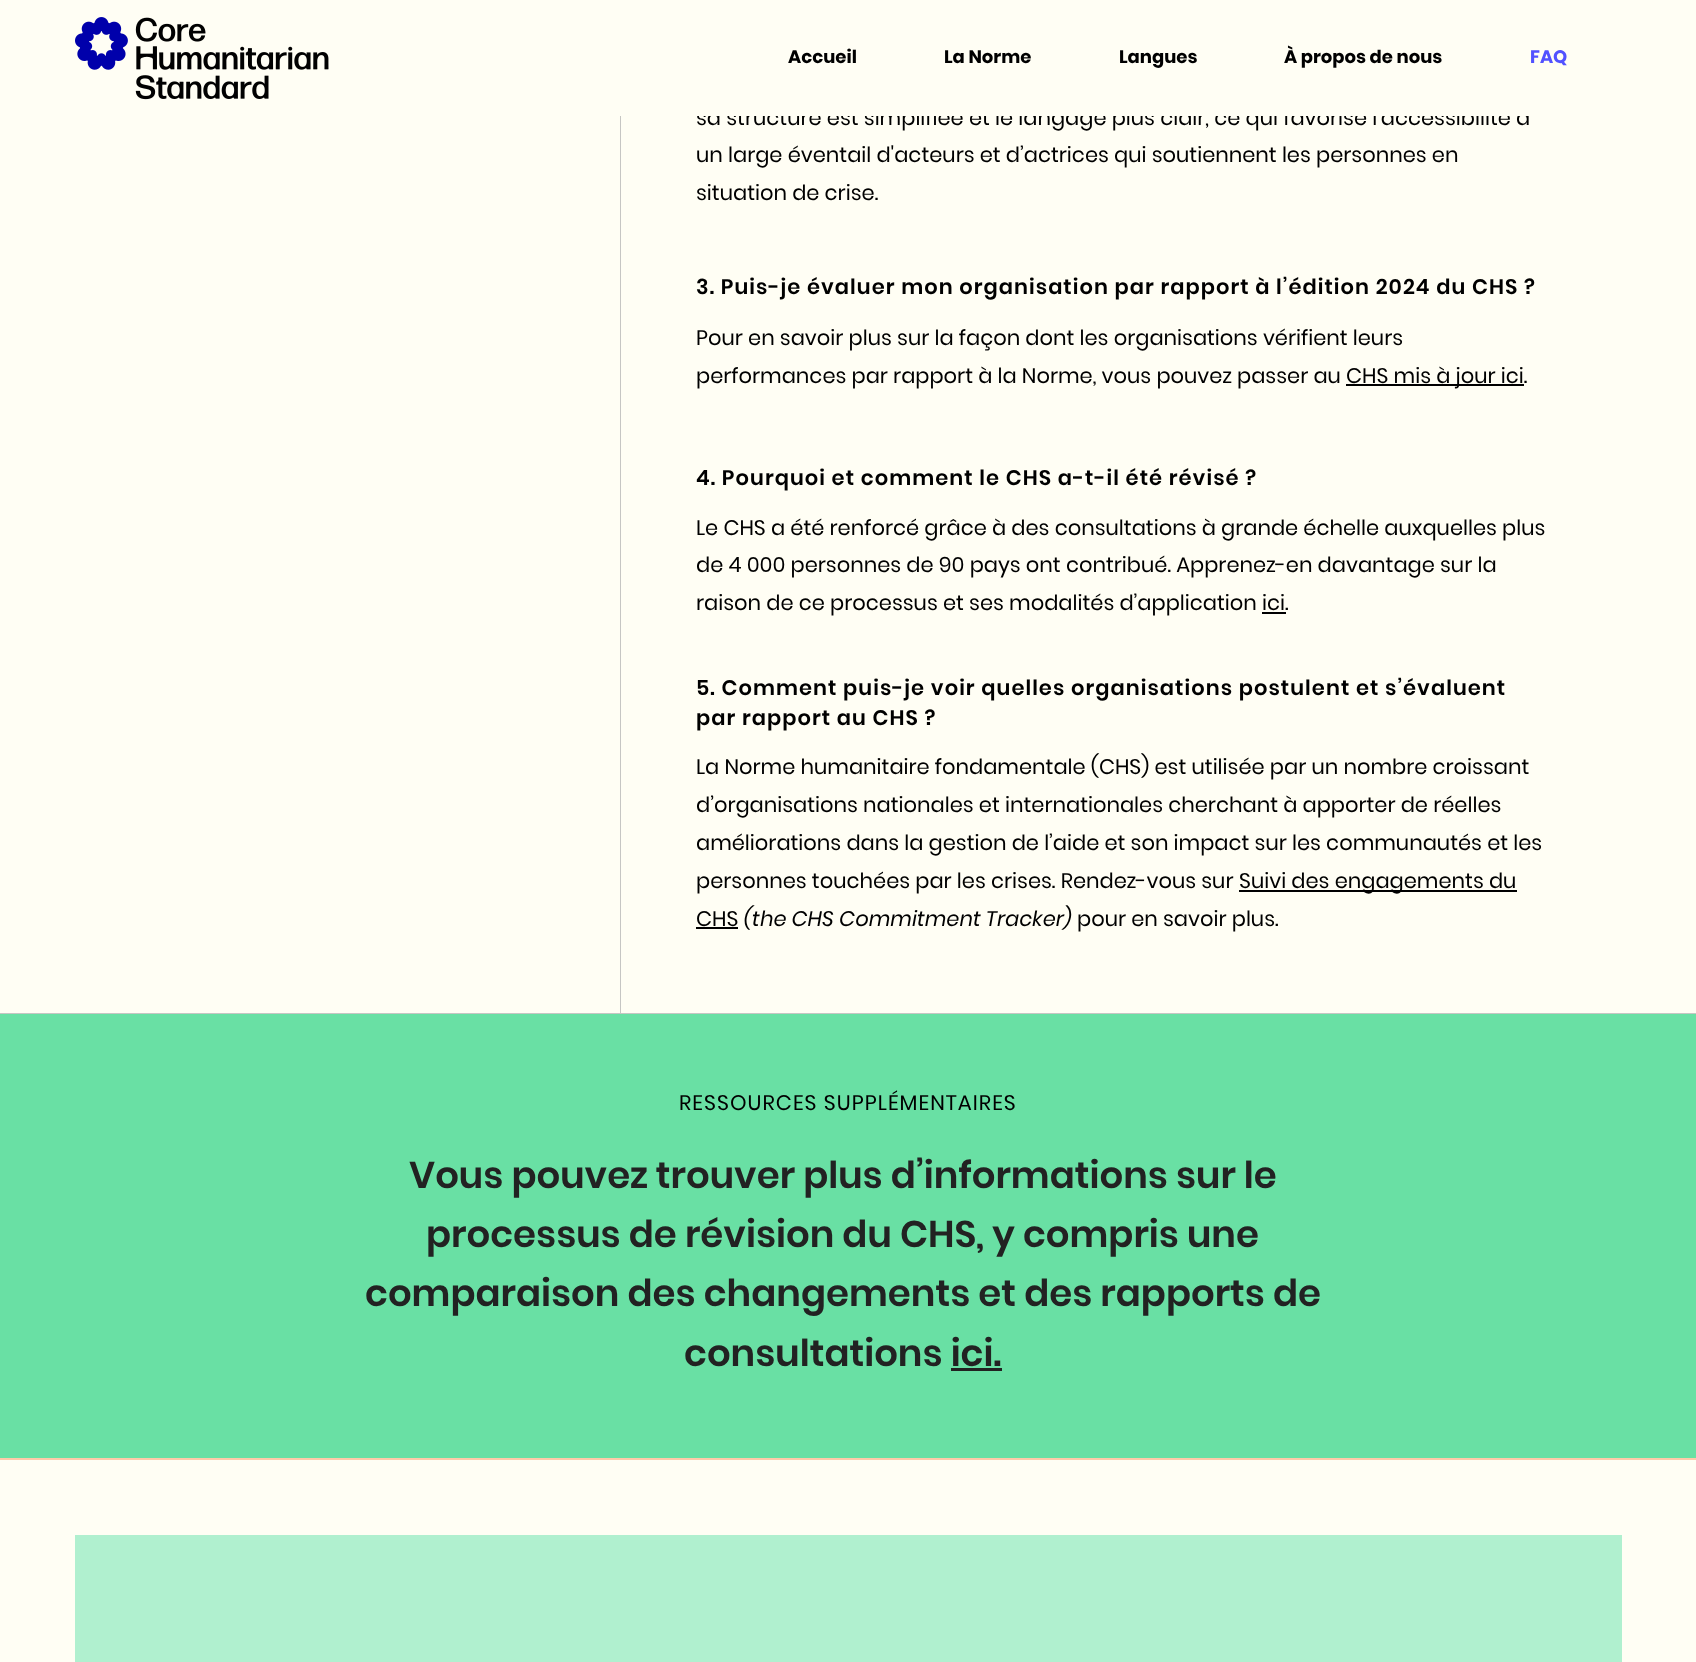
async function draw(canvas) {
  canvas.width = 1696;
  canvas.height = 1662;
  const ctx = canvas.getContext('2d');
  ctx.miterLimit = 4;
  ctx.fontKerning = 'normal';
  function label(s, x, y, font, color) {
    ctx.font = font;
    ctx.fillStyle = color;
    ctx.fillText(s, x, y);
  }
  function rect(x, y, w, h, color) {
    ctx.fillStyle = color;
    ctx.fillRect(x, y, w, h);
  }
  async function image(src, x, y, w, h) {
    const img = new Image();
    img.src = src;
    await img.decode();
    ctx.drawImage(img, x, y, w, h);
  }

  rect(0, 0, 1696, 1662, '#c6c6c3');
  rect(621, 116, 1075, 897, '#fffef4');
  label('sa structure est simplifiée et le langage plus clair, ce qui favorise l\'accessibilité à', 696, 125, '21px Poppins', '#000');
  rect(0, 0, 1696, 116, '#fffef4');
  await image('assets/img1.png', 75, 17, 254, 83);
  label('Accueil', 788, 63, 'bold 18px Poppins', '#000');
  label('La Norme', 944, 63, 'bold 18px Poppins', '#000');
  label('Langues', 1119, 63, 'bold 18px Poppins', '#000');
  label('À propos de nous', 1284, 63, 'bold 18px Poppins', '#000');
  label('FAQ', 1530, 63, 'bold 18px Poppins', '#5252ff');
  rect(0, 116, 620, 897, '#fffef4');
  label('un large éventail d\'acteurs et d’actrices qui soutiennent les personnes en', 696, 162, '21px Poppins', '#000');
  label('situation de crise.', 696, 200, '21px Poppins', '#000');
  ctx.letterSpacing = '1.05px';
  label('3. Puis-je évaluer mon organisation par rapport à l’édition 2024 du CHS ?', 696, 294, '600 21px Poppins', '#000');
  ctx.letterSpacing = '0px';
  label('Pour en savoir plus sur la façon dont les organisations vérifient leurs', 696, 345, '21px Poppins', '#000');
  label('performances par rapport à la Norme, vous pouvez passer au', 696, 383, '21px Poppins', '#000');
  rect(1346, 384, 178, 2, '#000');
  label('CHS mis à jour ici.', 1346, 383, '21px Poppins', '#000');
  ctx.letterSpacing = '1.05px';
  label('4. Pourquoi et comment le CHS a-t-il été révisé ?', 696, 485, '600 21px Poppins', '#000');
  ctx.letterSpacing = '0px';
  label('Le CHS a été renforcé grâce à des consultations à grande échelle auxquelles plus', 696, 535, '21px Poppins', '#000');
  label('de 4 000 personnes de 90 pays ont contribué. Apprenez-en davantage sur la', 696, 572, '21px Poppins', '#000');
  label('raison de ce processus et ses modalités d’application ici.', 696, 610, '21px Poppins', '#000');
  rect(1262, 612, 24, 2, '#000');
  ctx.letterSpacing = '1.05px';
  label('5. Comment puis-je voir quelles organisations postulent et s’évaluent', 696, 695, '600 21px Poppins', '#000');
  label('par rapport au CHS ?', 696, 725, '600 21px Poppins', '#000');
  ctx.letterSpacing = '0px';
  label('La Norme humanitaire fondamentale (CHS) est utilisée par un nombre croissant', 696, 774, '21px Poppins', '#000');
  label('d’organisations nationales et internationales cherchant à apporter de réelles', 696, 812, '21px Poppins', '#000');
  label('améliorations dans la gestion de l’aide et son impact sur les communautés et les', 696, 850, '21px Poppins', '#000');
  label('personnes touchées par les crises. Rendez-vous sur', 696, 888, '21px Poppins', '#000');
  rect(1239, 890, 278, 2, '#000');
  label('Suivi des engagements du', 1239, 888, '21px Poppins', '#000');
  label('CHS', 696, 926, '21px Poppins', '#000');
  rect(696, 927, 42, 2, '#000');
  label('(the CHS Commitment Tracker)', 744, 926, 'italic 21px Poppins', '#000');
  label('pour en savoir plus.', 1077, 926, '21px Poppins', '#000');
  rect(0, 1014, 1696, 444, '#69e0a4');
  ctx.letterSpacing = '1.05px';
  label('RESSOURCES SUPPLÉMENTAIRES', 679, 1110, '21px Poppins', '#000');
  ctx.letterSpacing = '0px';
  label('Vous pouvez trouver plus d’informations sur le', 409, 1188, '600 37.1px Poppins', '#222');
  label('processus de révision du CHS, y compris une', 426, 1247, '600 37.1px Poppins', '#222');
  label('comparaison des changements et des rapports de', 365, 1306, '600 37.1px Poppins', '#222');
  label('consultations ici.', 684, 1366, '600 37.1px Poppins', '#222');
  rect(951, 1368, 51, 3, '#222');
  rect(0, 1458, 1696, 2, '#ffcbaa');
  rect(0, 1460, 1696, 202, '#fffef4');
  rect(75, 1535, 1547, 127, '#b0f0cf');
}

draw(document.querySelector('canvas'));
